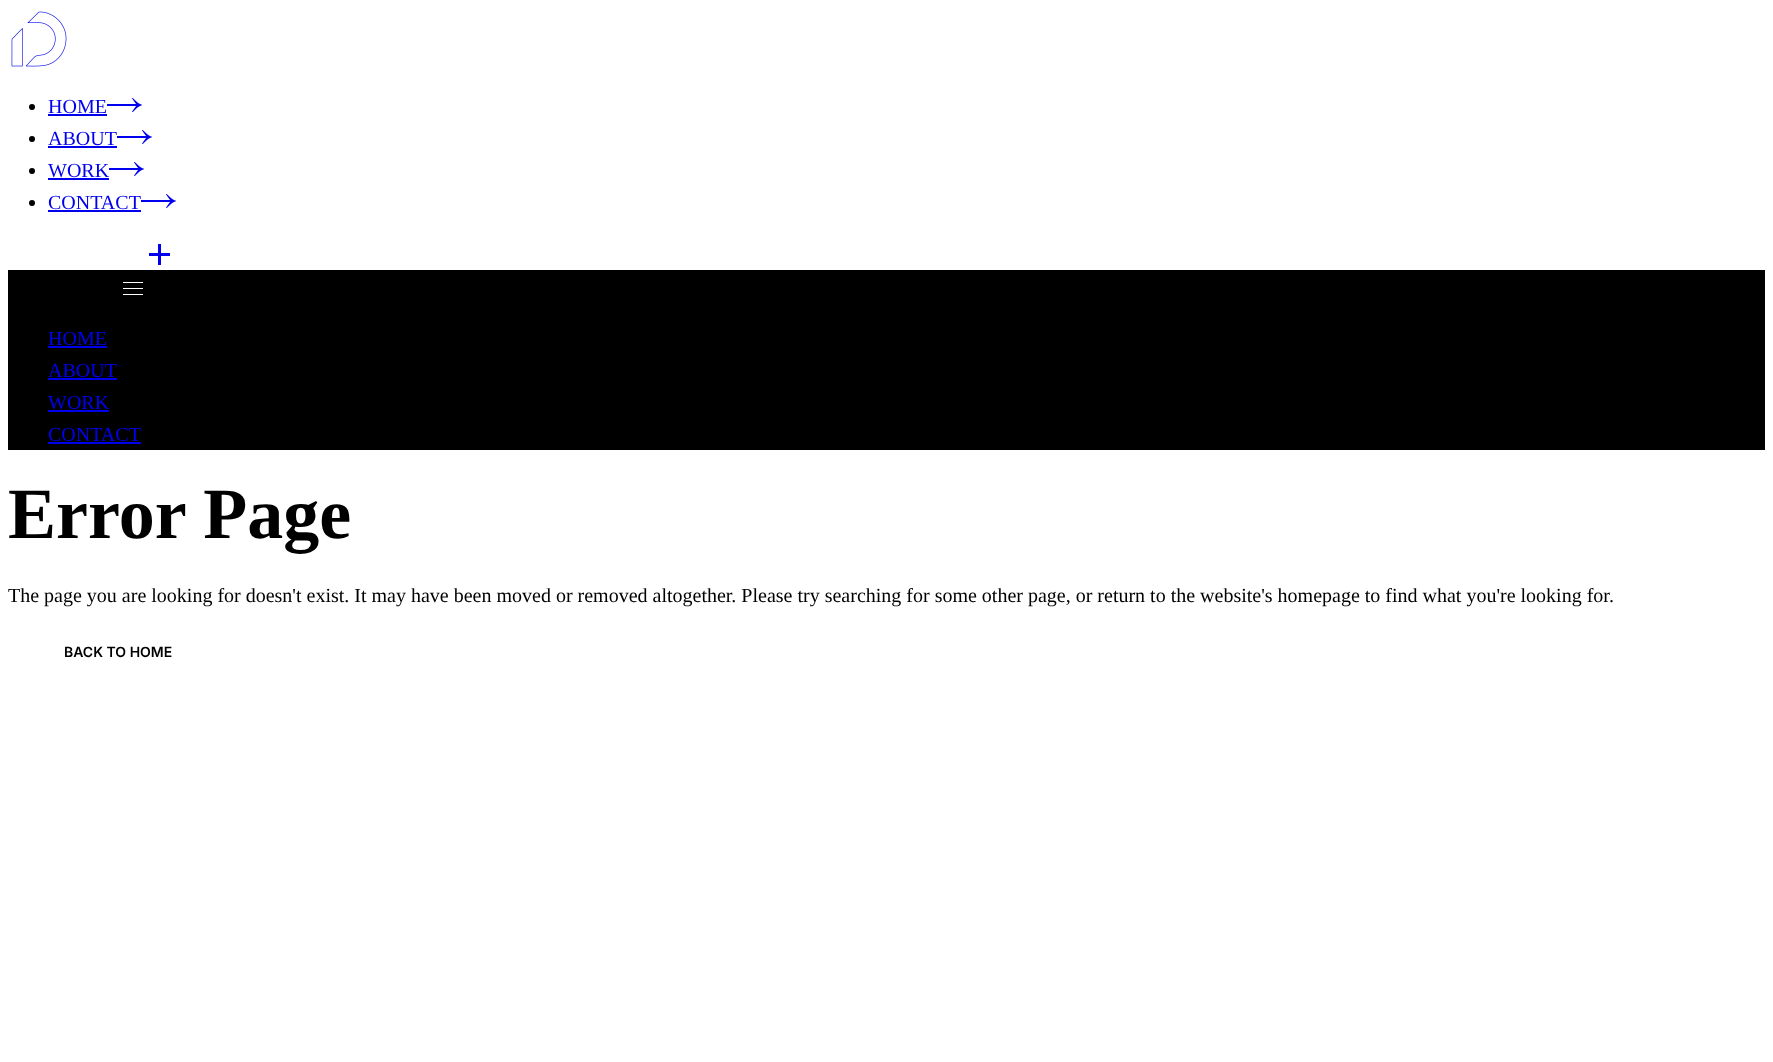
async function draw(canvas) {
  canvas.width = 1773;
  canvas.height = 1062;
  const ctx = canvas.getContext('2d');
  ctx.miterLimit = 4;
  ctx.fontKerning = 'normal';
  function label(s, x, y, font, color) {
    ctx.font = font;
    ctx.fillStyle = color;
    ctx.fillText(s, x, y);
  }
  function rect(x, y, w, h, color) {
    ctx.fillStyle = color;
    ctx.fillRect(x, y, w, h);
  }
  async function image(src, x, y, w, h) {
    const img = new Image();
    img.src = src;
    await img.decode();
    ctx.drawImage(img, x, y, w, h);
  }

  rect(0, 0, 1773, 1062, '#fff');
  await image('assets/img1.png', 11, 11, 56, 56);
  ctx.fillStyle = '#000';
  ctx.beginPath();
  ctx.arc(32, 107, 3, 0, 2 * Math.PI);
  ctx.fill();
  label('HOME', 48, 113, '20px Liberation Serif', '#00e');
  rect(48, 114, 59, 2, '#00e');
  await image('assets/img2.png', 107, 98, 35, 14);
  ctx.fillStyle = '#000';
  ctx.beginPath();
  ctx.arc(32, 139, 3, 0, 2 * Math.PI);
  ctx.fill();
  label('ABOUT', 48, 145, '20px Liberation Serif', '#00e');
  rect(48, 146, 69, 2, '#00e');
  await image('assets/img2.png', 117, 130, 35, 14);
  ctx.fillStyle = '#000';
  ctx.beginPath();
  ctx.arc(32, 171, 3, 0, 2 * Math.PI);
  ctx.fill();
  label('WORK', 48, 177, '20px Liberation Serif', '#00e');
  rect(48, 178, 61, 2, '#00e');
  await image('assets/img2.png', 109, 162, 35, 14);
  ctx.fillStyle = '#000';
  ctx.beginPath();
  ctx.arc(32, 203, 3, 0, 2 * Math.PI);
  ctx.fill();
  label('CONTACT', 48, 209, '20px Liberation Serif', '#00e');
  rect(48, 210, 93, 2, '#00e');
  await image('assets/img2.png', 141, 194, 35, 14);
  rect(149, 253, 21, 3, '#00e');
  rect(158, 244, 3, 21, '#00e');
  rect(8, 270, 1757, 180, '#000');
  rect(123, 282, 20, 1, '#fff');
  rect(123, 288, 20, 1, '#fff');
  rect(123, 294, 20, 1, '#fff');
  label('HOME', 48, 345, '20px Liberation Serif', '#00e');
  rect(48, 346, 59, 2, '#00e');
  label('ABOUT', 48, 377, '20px Liberation Serif', '#00e');
  rect(48, 378, 69, 2, '#00e');
  label('WORK', 48, 409, '20px Liberation Serif', '#00e');
  rect(48, 410, 61, 2, '#00e');
  label('CONTACT', 48, 441, '20px Liberation Serif', '#00e');
  rect(48, 442, 93, 2, '#00e');
  label('Error Page', 8, 538, 'bold 72px Liberation Serif', '#000');
  label('The page you are looking for doesn\'t exist. It may have been moved or removed altogether. Please try searching for some other page, or return to the website\'s homepage to find what you\'re looking for.', 8, 602, '20px Liberation Serif', '#000');
  label('BACK TO HOME', 64, 657, '600 14px Inter', '#000');
}

draw(document.querySelector('canvas'));
